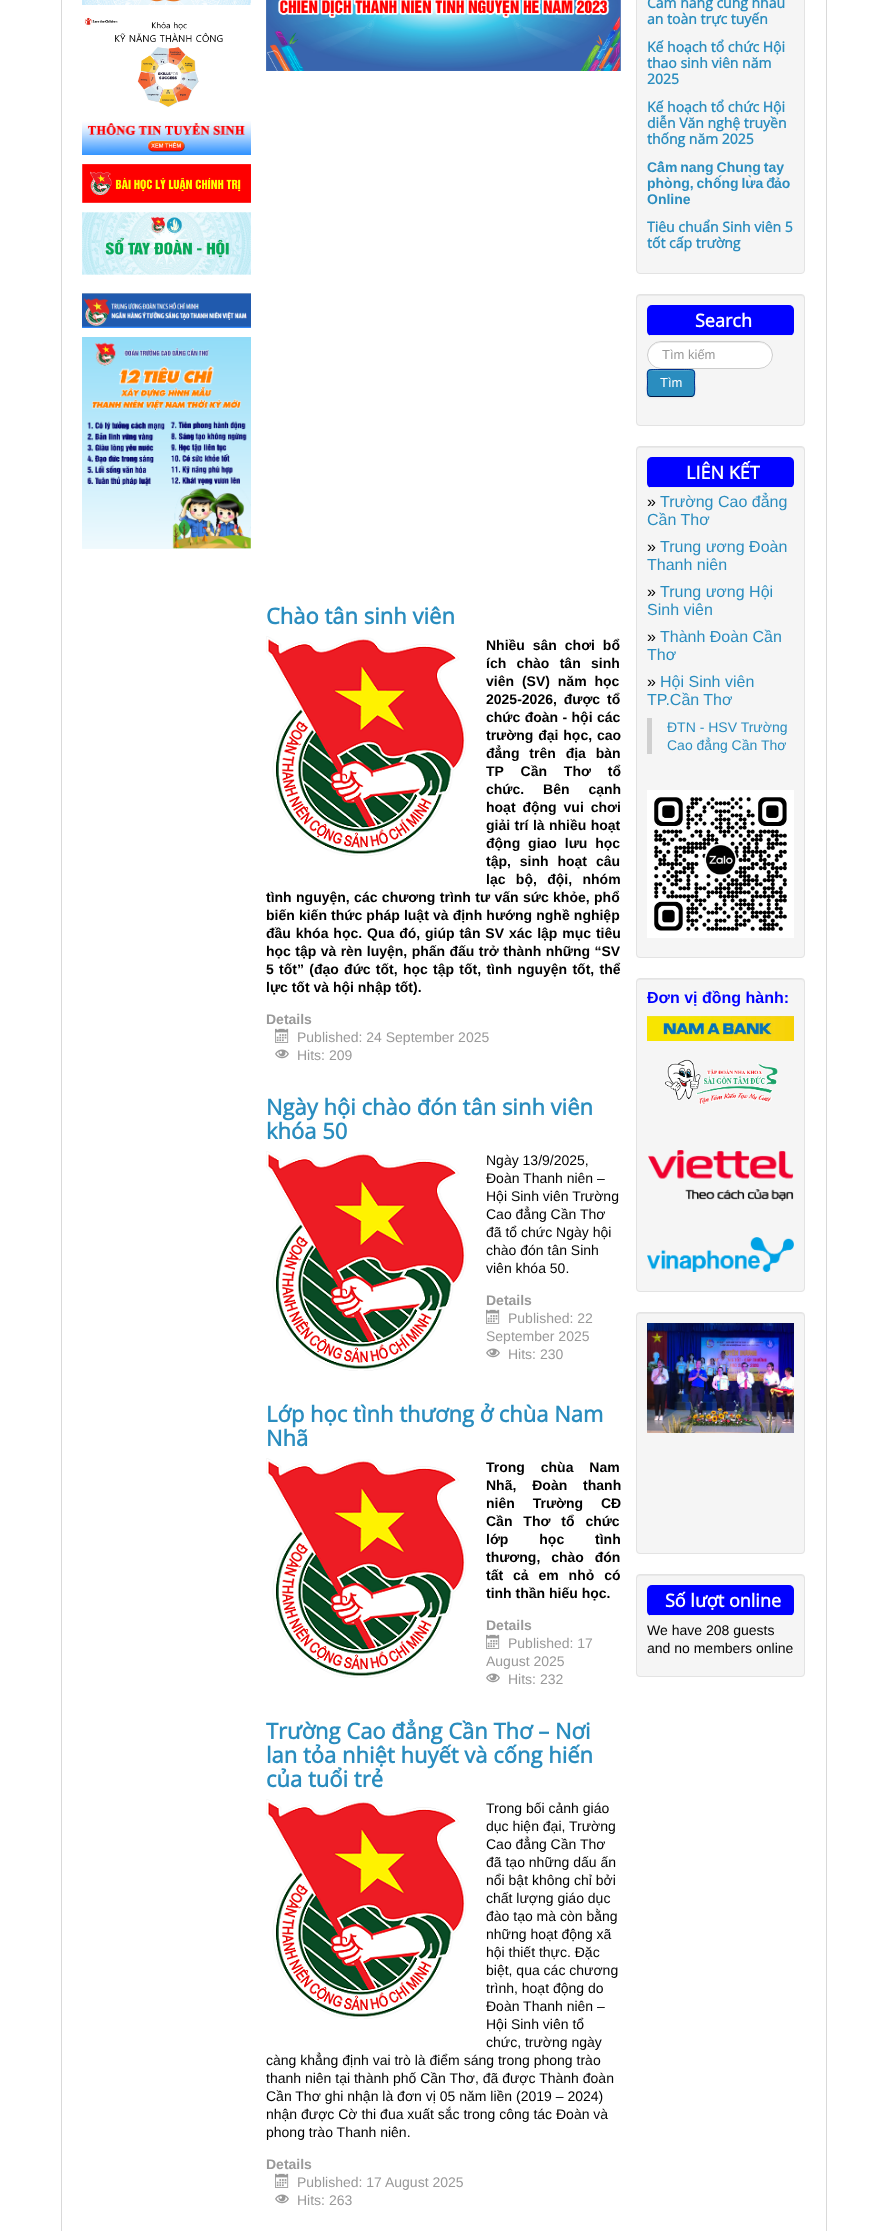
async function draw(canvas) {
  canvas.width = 887;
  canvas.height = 2231;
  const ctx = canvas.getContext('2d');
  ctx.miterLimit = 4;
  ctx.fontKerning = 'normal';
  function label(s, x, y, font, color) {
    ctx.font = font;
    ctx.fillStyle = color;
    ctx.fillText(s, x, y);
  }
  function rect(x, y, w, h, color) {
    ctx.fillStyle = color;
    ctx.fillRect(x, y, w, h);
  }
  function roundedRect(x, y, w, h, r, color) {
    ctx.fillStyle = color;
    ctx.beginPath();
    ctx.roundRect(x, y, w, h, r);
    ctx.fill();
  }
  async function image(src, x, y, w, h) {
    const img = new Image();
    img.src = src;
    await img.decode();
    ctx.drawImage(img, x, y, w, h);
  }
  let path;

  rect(0, 0, 887, 2231, '#fff');
  ctx.strokeStyle = '#d9d9d9';
  ctx.strokeRect(61.5, -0.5, 765, 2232);
  await image('assets/img1.png', 82, 0, 169, 5);
  await image('assets/img2.png', 84, 17, 139, 90);
  await image('assets/img3.png', 82, 121, 169, 34);
  await image('assets/img4.png', 82, 164, 169, 39);
  await image('assets/img5.png', 82, 212, 169, 63);
  await image('assets/img6.png', 82, 293, 169, 35);
  await image('assets/img7.png', 82, 337, 169, 212);
  await image('assets/img8.png', 266, 0, 355, 71);
  label('Chào tân sinh viên', 266, 624, 'bold 22px Open Sans', '#2a8dbf');
  await image('assets/img9.png', 266, 636, 200, 220);
  ctx.wordSpacing = '4px';
  label('Nhiều sân chơi bổ', 486, 650, 'bold 14px Liberation Sans', '#000');
  ctx.wordSpacing = '6.5px';
  label('ích chào tân sinh', 486, 668, 'bold 14px Liberation Sans', '#000');
  ctx.wordSpacing = '4px';
  label('viên (SV) năm học', 486, 686, 'bold 14px Liberation Sans', '#000');
  ctx.wordSpacing = '3px';
  label('2025-2026, được tổ', 486, 704, 'bold 14px Liberation Sans', '#000');
  ctx.wordSpacing = '0.5px';
  label('chức đoàn - hội các', 486, 722, 'bold 14px Liberation Sans', '#000');
  ctx.wordSpacing = '1px';
  label('trường đại học, cao', 486, 740, 'bold 14px Liberation Sans', '#000');
  ctx.wordSpacing = '6px';
  label('đẳng trên địa bàn', 486, 758, 'bold 14px Liberation Sans', '#000');
  ctx.wordSpacing = '13px';
  label('TP Cần Thơ tổ', 486, 776, 'bold 14px Liberation Sans', '#000');
  ctx.wordSpacing = '15px';
  label('chức. Bên cạnh', 486, 794, 'bold 14px Liberation Sans', '#000');
  ctx.wordSpacing = '3px';
  label('hoạt động vui chơi', 486, 812, 'bold 14px Liberation Sans', '#000');
  ctx.wordSpacing = '0.5px';
  label('giải trí là nhiều hoạt', 486, 830, 'bold 14px Liberation Sans', '#000');
  ctx.wordSpacing = '4px';
  label('động giao lưu học', 486, 848, 'bold 14px Liberation Sans', '#000');
  ctx.wordSpacing = '5px';
  label('tập, sinh hoạt câu', 486, 866, 'bold 14px Liberation Sans', '#000');
  ctx.wordSpacing = '6.5px';
  label('lạc bộ, đội, nhóm', 486, 884, 'bold 14px Liberation Sans', '#000');
  ctx.wordSpacing = '0.5px';
  label('tình nguyện, các chương trình tư vấn sức khỏe, phổ', 266, 902, 'bold 14px Liberation Sans', '#000');
  ctx.wordSpacing = '0.25px';
  label('biến kiến thức pháp luật và định hướng nghề nghiệp', 266, 920, 'bold 14px Liberation Sans', '#000');
  ctx.wordSpacing = '1px';
  label('đầu khóa học. Qua đó, giúp tân SV xác lập mục tiêu', 266, 938, 'bold 14px Liberation Sans', '#000');
  ctx.wordSpacing = '0.5px';
  label('học tập và rèn luyện, phấn đấu trở thành những “SV', 266, 956, 'bold 14px Liberation Sans', '#000');
  ctx.wordSpacing = '1.4px';
  label('5 tốt” (đạo đức tốt, học tập tốt, tình nguyện tốt, thể', 266, 974, 'bold 14px Liberation Sans', '#000');
  ctx.wordSpacing = '0px';
  label('lực tốt và hội nhập tốt).', 266, 992, 'bold 14px Liberation Sans', '#000');
  label('Details', 266, 1024, 'bold 14px Liberation Sans', '#999');
  await image('assets/img10.png', 275, 1028, 14, 15);
  label('Published: 24 September 2025', 297, 1042, '14px Liberation Sans', '#999');
  await image('assets/img11.png', 275, 1049, 14, 10);
  label('Hits: 209', 297, 1060, '14px Liberation Sans', '#999');
  label('Ngày hội chào đón tân sinh viên', 266, 1115, 'bold 22px Open Sans', '#2a8dbf');
  label('khóa 50', 266, 1139, 'bold 22px Open Sans', '#2a8dbf');
  await image('assets/img9.png', 266, 1151, 200, 220);
  label('Ngày 13/9/2025,', 486, 1165, '14px Liberation Sans', '#000');
  label('Đoàn Thanh niên –', 486, 1183, '14px Liberation Sans', '#000');
  label('Hội Sinh viên Trường', 486, 1201, '14px Liberation Sans', '#000');
  label('Cao đẳng Cần Thơ', 486, 1219, '14px Liberation Sans', '#000');
  label('đã tổ chức Ngày hội', 486, 1237, '14px Liberation Sans', '#000');
  label('chào đón tân Sinh', 486, 1255, '14px Liberation Sans', '#000');
  label('viên khóa 50.', 486, 1273, '14px Liberation Sans', '#000');
  label('Details', 486, 1305, 'bold 14px Liberation Sans', '#999');
  await image('assets/img10.png', 486, 1309, 14, 15);
  label('Published: 22', 508, 1323, '14px Liberation Sans', '#999');
  label('September 2025', 486, 1341, '14px Liberation Sans', '#999');
  await image('assets/img11.png', 486, 1348, 14, 10);
  label('Hits: 230', 508, 1359, '14px Liberation Sans', '#999');
  label('Lớp học tình thương ở chùa Nam', 266, 1422, 'bold 22px Open Sans', '#2a8dbf');
  label('Nhã', 266, 1446, 'bold 22px Open Sans', '#2a8dbf');
  await image('assets/img9.png', 266, 1458, 200, 220);
  ctx.wordSpacing = '12px';
  label('Trong chùa Nam', 486, 1472, 'bold 14px Liberation Sans', '#000');
  label('Nhã, Đoàn thanh', 486, 1490, 'bold 14px Liberation Sans', '#000');
  ctx.wordSpacing = '14px';
  label('niên Trường CĐ', 486, 1508, 'bold 14px Liberation Sans', '#000');
  ctx.wordSpacing = '7px';
  label('Cần Thơ tổ chức', 486, 1526, 'bold 14px Liberation Sans', '#000');
  ctx.wordSpacing = '27px';
  label('lớp học tình', 486, 1544, 'bold 14px Liberation Sans', '#000');
  ctx.wordSpacing = '7px';
  label('thương, chào đón', 486, 1562, 'bold 14px Liberation Sans', '#000');
  ctx.wordSpacing = '6px';
  label('tất cả em nhỏ có', 486, 1580, 'bold 14px Liberation Sans', '#000');
  ctx.wordSpacing = '0px';
  label('tinh thần hiếu học.', 486, 1598, 'bold 14px Liberation Sans', '#000');
  label('Details', 486, 1630, 'bold 14px Liberation Sans', '#999');
  await image('assets/img10.png', 486, 1634, 14, 15);
  label('Published: 17', 508, 1648, '14px Liberation Sans', '#999');
  label('August 2025', 486, 1666, '14px Liberation Sans', '#999');
  await image('assets/img11.png', 486, 1673, 14, 10);
  label('Hits: 232', 508, 1684, '14px Liberation Sans', '#999');
  label('Trường Cao đẳng Cần Thơ – Nơi', 266, 1739, 'bold 22px Open Sans', '#2a8dbf');
  label('lan tỏa nhiệt huyết và cống hiến', 266, 1763, 'bold 22px Open Sans', '#2a8dbf');
  label('của tuổi trẻ', 266, 1787, 'bold 22px Open Sans', '#2a8dbf');
  await image('assets/img9.png', 266, 1799, 200, 220);
  label('Trong bối cảnh giáo', 486, 1813, '14px Liberation Sans', '#000');
  label('dục hiện đại, Trường', 486, 1831, '14px Liberation Sans', '#000');
  label('Cao đẳng Cần Thơ', 486, 1849, '14px Liberation Sans', '#000');
  label('đã tạo những dấu ấn', 486, 1867, '14px Liberation Sans', '#000');
  label('nổi bật không chỉ bởi', 486, 1885, '14px Liberation Sans', '#000');
  label('chất lượng giáo dục', 486, 1903, '14px Liberation Sans', '#000');
  label('đào tạo mà còn bằng', 486, 1921, '14px Liberation Sans', '#000');
  label('những hoạt động xã', 486, 1939, '14px Liberation Sans', '#000');
  label('hội thiết thực. Đặc', 486, 1957, '14px Liberation Sans', '#000');
  label('biệt, qua các chương', 486, 1975, '14px Liberation Sans', '#000');
  label('trình, hoạt động do', 486, 1993, '14px Liberation Sans', '#000');
  label('Đoàn Thanh niên –', 486, 2011, '14px Liberation Sans', '#000');
  label('Hội Sinh viên tổ', 486, 2029, '14px Liberation Sans', '#000');
  label('chức, trường ngày', 486, 2047, '14px Liberation Sans', '#000');
  label('càng khẳng định vai trò là điểm sáng trong phong trào', 266, 2065, '14px Liberation Sans', '#000');
  label('thanh niên tại thành phố Cần Thơ, đã được Thành đoàn', 266, 2083, '14px Liberation Sans', '#000');
  label('Cần Thơ ghi nhận là đơn vị 05 năm liền (2019 – 2024)', 266, 2101, '14px Liberation Sans', '#000');
  label('nhận được Cờ thi đua xuất sắc trong công tác Đoàn và', 266, 2119, '14px Liberation Sans', '#000');
  label('phong trào Thanh niên.', 266, 2137, '14px Liberation Sans', '#000');
  label('Details', 266, 2169, 'bold 14px Liberation Sans', '#999');
  await image('assets/img10.png', 275, 2173, 14, 15);
  label('Published: 17 August 2025', 297, 2187, '14px Liberation Sans', '#999');
  await image('assets/img11.png', 275, 2194, 14, 10);
  label('Hits: 263', 297, 2205, '14px Liberation Sans', '#999');
  ctx.fillStyle = '#f5f5f5';
  ctx.beginPath();
  ctx.roundRect(636.5, -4.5, 168, 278, 3.5);
  ctx.fill();
  ctx.strokeStyle = '#e3e3e3';
  ctx.stroke();
  label('Cẩm nang cùng nhau', 647, 8, 'bold 14px Open Sans', '#2a8dbf');
  label('an toàn trực tuyến', 647, 24, 'bold 14px Open Sans', '#2a8dbf');
  label('Kế hoạch tổ chức Hội', 647, 52, 'bold 14px Open Sans', '#2a8dbf');
  label('thao sinh viên năm', 647, 68, 'bold 14px Open Sans', '#2a8dbf');
  label('2025', 647, 84, 'bold 14px Open Sans', '#2a8dbf');
  label('Kế hoạch tổ chức Hội', 647, 112, 'bold 14px Open Sans', '#2a8dbf');
  label('diễn Văn nghệ truyền', 647, 128, 'bold 14px Open Sans', '#2a8dbf');
  label('thống năm 2025', 647, 144, 'bold 14px Open Sans', '#2a8dbf');
  ctx.wordSpacing = '-1px';
  label('Cẩm nang Chung tay', 647, 172, 'bold 14px Liberation Sans', '#2a8dbf');
  label('phòng, chống lừa', 647, 188, 'bold 14px Liberation Sans', '#2a8dbf');
  ctx.wordSpacing = '0px';
  label('đ', 766, 188, 'bold 14px Open Sans', '#2a8dbf');
  label('ảo', 774, 188, 'bold 14px Liberation Sans', '#2a8dbf');
  label('Online', 647, 204, 'bold 14px Liberation Sans', '#2a8dbf');
  label('Tiêu chuẩn Sinh viên 5', 647, 232, 'bold 14px Open Sans', '#2a8dbf');
  label('tốt cấp trường', 647, 248, 'bold 14px Open Sans', '#2a8dbf');
  roundedRect(636, 294, 169, 132, 4, '#f5f5f5');
  ctx.fillStyle = '#e9e9e9';
  path = new Path2D('M640 296H801C803 296 804 297 804 299V298C804 296 803 295 801 295H640C638 295 637 296 637 298V299C637 297 638 296 640 296Z');
  ctx.fill(path);
  ctx.beginPath();
  ctx.roundRect(636.5, 294.5, 168, 131, 3.5);
  ctx.stroke();
  roundedRect(647, 305, 147, 31, 5, '#00f');
  rect(650, 335, 142, 1, '#eee');
  label('Search', 695, 327, 'bold 18px Open Sans', '#fff');
  roundedRect(647, 341, 126, 28, 14, '#fff');
  ctx.fillStyle = '#ececec';
  path = new Path2D('M661 343H759C766 343 772 349 772 356C773 339 753 342 743 342H677C667 342 647 339 648 356C648 349 654 343 661 343Z');
  ctx.fill(path);
  ctx.beginPath();
  ctx.roundRect(647.5, 341.5, 125, 27, 13.5);
  ctx.strokeStyle = '#ccc';
  ctx.stroke();
  label('Tìm kiếm', 662, 359, '13px Liberation Sans', '#999');
  ctx.fillStyle = '#0000000d';
  ctx.filter = 'blur(1px)';
  ctx.beginPath();
  ctx.roundRect(647, 370, 48, 28, 4);
  ctx.fill();
  ctx.filter = 'none';
  roundedRect(647, 369, 48, 28, 4, '#2a8dbf');
  ctx.fillStyle = '#55a4cc';
  path = new Path2D('M651 371H691C693 371 694 372 694 374C694 369 689 370 684 370H658C653 370 648 369 648 374C648 372 649 371 651 371Z');
  ctx.fill(path);
  path = new Path2D('M693.5 395.5C693 396 692 396.5 691 396.5H651C650 396.5 649 396 648.5 395.5');
  ctx.strokeStyle = '#001641';
  ctx.stroke(path);
  path = new Path2D('M648.5 395.5C646.5 393 647.5 385.5 647.5 383C647.5 370 645 369.5 657.5 369.5H684.5C697 369.5 694.5 370 694.5 383C694.5 385.5 695.5 393 693.5 395.5');
  ctx.strokeStyle = '#002f8d';
  ctx.stroke(path);
  label('Tìm', 660, 387, '13px Liberation Sans', '#fff');
  roundedRect(636, 446, 169, 512, 4, '#f5f5f5');
  ctx.fillStyle = '#e9e9e9';
  path = new Path2D('M640 448H801C803 448 804 449 804 451V450C804 448 803 447 801 447H640C638 447 637 448 637 450V451C637 449 638 448 640 448Z');
  ctx.fill(path);
  ctx.beginPath();
  ctx.roundRect(636.5, 446.5, 168, 511, 3.5);
  ctx.strokeStyle = '#e3e3e3';
  ctx.stroke();
  roundedRect(647, 457, 147, 31, 5, '#00f');
  rect(650, 487, 142, 1, '#eee');
  label('LIÊN KẾT', 686, 479, 'bold 18px Open Sans', '#fff');
  label('»', 647, 507, '16px Liberation Sans', '#000');
  label('Trường Cao đẳng', 660, 507, '16px Liberation Sans', '#2a8dbf');
  label('Cần Thơ', 647, 525, '16px Liberation Sans', '#2a8dbf');
  label('»', 647, 552, '16px Liberation Sans', '#000');
  label('Trung ương Đoàn', 660, 552, '16px Liberation Sans', '#2a8dbf');
  label('Thanh niên', 647, 570, '16px Liberation Sans', '#2a8dbf');
  label('»', 647, 597, '16px Liberation Sans', '#000');
  label('Trung ương Hội', 660, 597, '16px Liberation Sans', '#2a8dbf');
  label('Sinh viên', 647, 615, '16px Liberation Sans', '#2a8dbf');
  label('»', 647, 642, '16px Liberation Sans', '#000');
  label('Thành Đoàn Cần', 660, 642, '16px Liberation Sans', '#2a8dbf');
  label('Thơ', 647, 660, '16px Liberation Sans', '#2a8dbf');
  label('»', 647, 687, '16px Liberation Sans', '#000');
  label('Hội Sinh viên', 660, 687, '16px Liberation Sans', '#2a8dbf');
  label('TP.Cần Thơ', 647, 705, '16px Liberation Sans', '#2a8dbf');
  rect(647, 718, 5, 36, '#d0d0d0');
  label('ĐTN - HSV Trường', 667, 732, '14px Liberation Sans', '#2a8dbf');
  label('Cao đẳng Cần Thơ', 667, 750, '14px Liberation Sans', '#2a8dbf');
  await image('assets/img12.png', 647, 790, 147, 148);
  roundedRect(636, 978, 169, 314, 4, '#f5f5f5');
  ctx.fillStyle = '#e9e9e9';
  path = new Path2D('M640 980H801C803 980 804 981 804 983V982C804 980 803 979 801 979H640C638 979 637 980 637 982V983C637 981 638 980 640 980Z');
  ctx.fill(path);
  ctx.beginPath();
  ctx.roundRect(636.5, 978.5, 168, 313, 3.5);
  ctx.stroke();
  label('Đơn vị đồng hành:', 647, 1003, 'bold 16px Liberation Sans', '#00f');
  await image('assets/img13.png', 647, 1016, 147, 25);
  await image('assets/img14.png', 664, 1059, 114, 46);
  await image('assets/img15.png', 648, 1150, 146, 51);
  await image('assets/img16.png', 647, 1237, 147, 35);
  roundedRect(636, 1312, 169, 242, 4, '#f5f5f5');
  ctx.fillStyle = '#e9e9e9';
  path = new Path2D('M640 1314H801C803 1314 804 1315 804 1317V1316C804 1314 803 1313 801 1313H640C638 1313 637 1314 637 1316V1317C637 1315 638 1314 640 1314Z');
  ctx.fill(path);
  ctx.beginPath();
  ctx.roundRect(636.5, 1312.5, 168, 241, 3.5);
  ctx.stroke();
  await image('assets/img17.png', 647, 1323, 147, 110);
  roundedRect(636, 1574, 169, 103, 4, '#f5f5f5');
  ctx.fillStyle = '#e9e9e9';
  path = new Path2D('M640 1576H801C803 1576 804 1577 804 1579V1578C804 1576 803 1575 801 1575H640C638 1575 637 1576 637 1578V1579C637 1577 638 1576 640 1576Z');
  ctx.fill(path);
  ctx.beginPath();
  ctx.roundRect(636.5, 1574.5, 168, 102, 3.5);
  ctx.stroke();
  roundedRect(647, 1585, 147, 31, 5, '#00f');
  rect(650, 1615, 142, 1, '#eee');
  label('Số lượt online', 665, 1607, 'bold 18px Open Sans', '#fff');
  label('We have 208 guests', 647, 1635, '14px Liberation Sans', '#000');
  label('and no members online', 647, 1653, '14px Liberation Sans', '#000');
}

draw(document.querySelector('canvas'));
